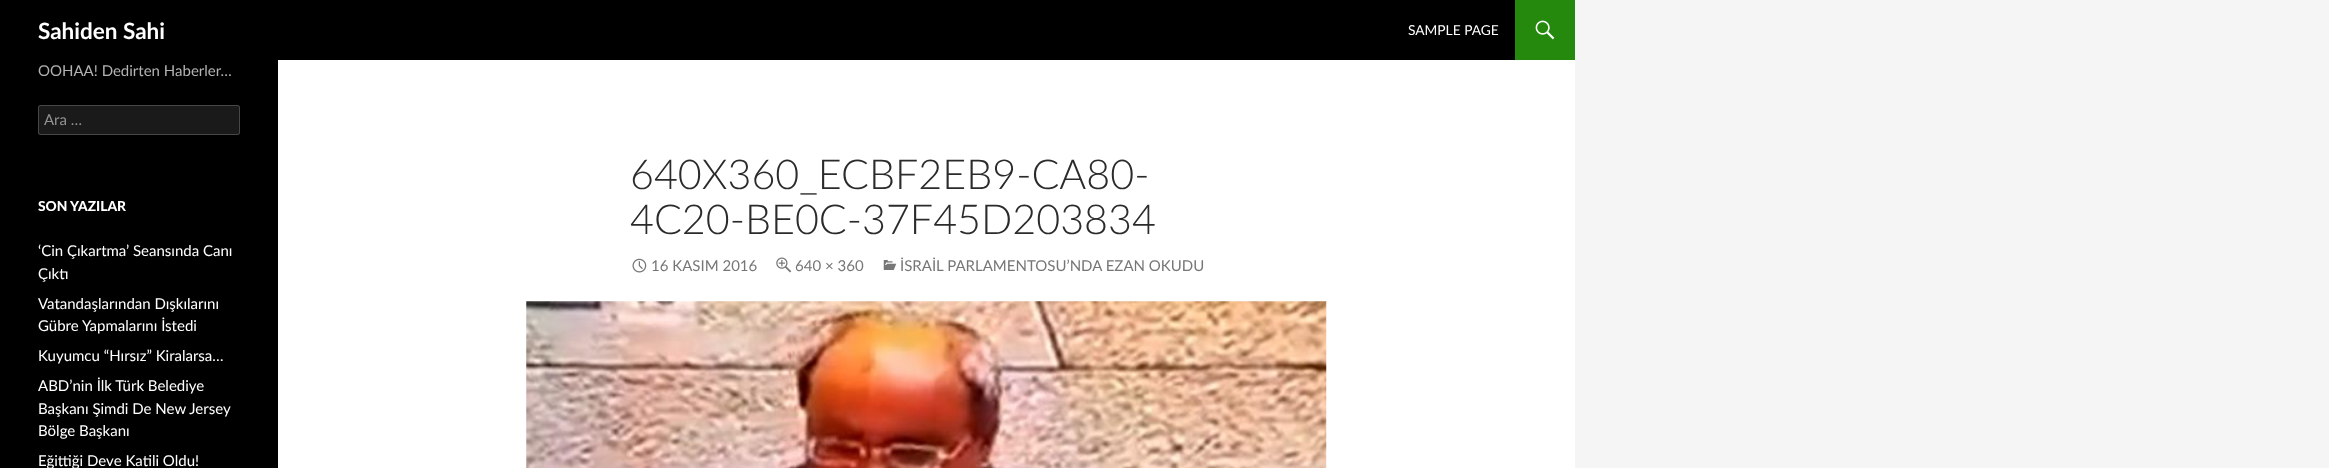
async function draw(canvas) {
  canvas.width = 2329;
  canvas.height = 468;
  const ctx = canvas.getContext('2d');
  ctx.miterLimit = 4;
  ctx.fontKerning = 'normal';
  function label(s, x, y, font, color) {
    ctx.font = font;
    ctx.fillStyle = color;
    ctx.fillText(s, x, y);
  }
  function rect(x, y, w, h, color) {
    ctx.fillStyle = color;
    ctx.fillRect(x, y, w, h);
  }
  function roundedRect(x, y, w, h, r, color) {
    ctx.fillStyle = color;
    ctx.beginPath();
    ctx.roundRect(x, y, w, h, r);
    ctx.fill();
  }
  async function image(src, x, y, w, h) {
    const img = new Image();
    img.src = src;
    await img.decode();
    ctx.drawImage(img, x, y, w, h);
  }

  rect(0, 0, 2329, 468, '#f5f5f5');
  rect(278, 60, 1297, 408, '#fff');
  rect(0, 0, 1515, 60, '#000');
  label('Sahiden Sahi', 38, 39, 'bold 22.5px Lato', '#fff');
  label('SAMPLE PAGE', 1408, 35, '13.75px Lato', '#fff');
  rect(1515, 0, 60, 60, '#24890d');
  await image('assets/img1.png', 1535, 20, 20, 20);
  rect(0, 60, 278, 408, '#000');
  label('OOHAA! Dedirten Haberler…', 38, 76, '15px Lato', '#b3b3b3');
  roundedRect(38, 105, 202, 30, 2.5, '#1a1a1a');
  ctx.beginPath();
  ctx.roundRect(38.5, 105.5, 201, 29, 2);
  ctx.strokeStyle = '#ffffff33';
  ctx.stroke();
  label('Ara …', 44, 125, '15px Lato', '#939393');
  label('SON YAZILAR', 38, 211, '900 13.75px Lato', '#fff');
  label('‘Cin Çıkartma’ Seansında Canı', 38, 256, '15px Lato', '#fff');
  label('Çıktı', 38, 279, '15px Lato', '#fff');
  label('Vatandaşlarından Dışkılarını', 38, 309, '15px Lato', '#fff');
  label('Gübre Yapmalarını İstedi', 38, 331, '15px Lato', '#fff');
  label('Kuyumcu “Hırsız” Kiralarsa…', 38, 361, '15px Lato', '#fff');
  label('ABD’nin İlk Türk Belediye', 38, 391, '15px Lato', '#fff');
  label('Başkanı Şimdi De New Jersey', 38, 414, '15px Lato', '#fff');
  label('Bölge Başkanı', 38, 436, '15px Lato', '#fff');
  label('Eğittiği Deve Katili Oldu!', 38, 466, '15px Lato', '#fff');
  label('640X360_ECBF2EB9-CA80-', 630, 189, '300 41.25px Lato', '#2b2b2b');
  label('4C20-BE0C-37F45D203834', 630, 234, '300 41.25px Lato', '#2b2b2b');
  await image('assets/img2.png', 632, 258, 15, 15);
  label('16 KASIM 2016', 651, 271, '15px Lato', '#767676');
  await image('assets/img3.png', 776, 257, 16, 16);
  label('640 × 360', 795, 271, '15px Lato', '#767676');
  await image('assets/img4.png', 883, 260, 14, 10);
  label('İSRAİL PARLAMENTOSU’NDA EZAN OKUDU', 900, 271, '15px Lato', '#767676');
  await image('assets/img5.png', 526, 301, 801, 167);
}

draw(document.querySelector('canvas'));
